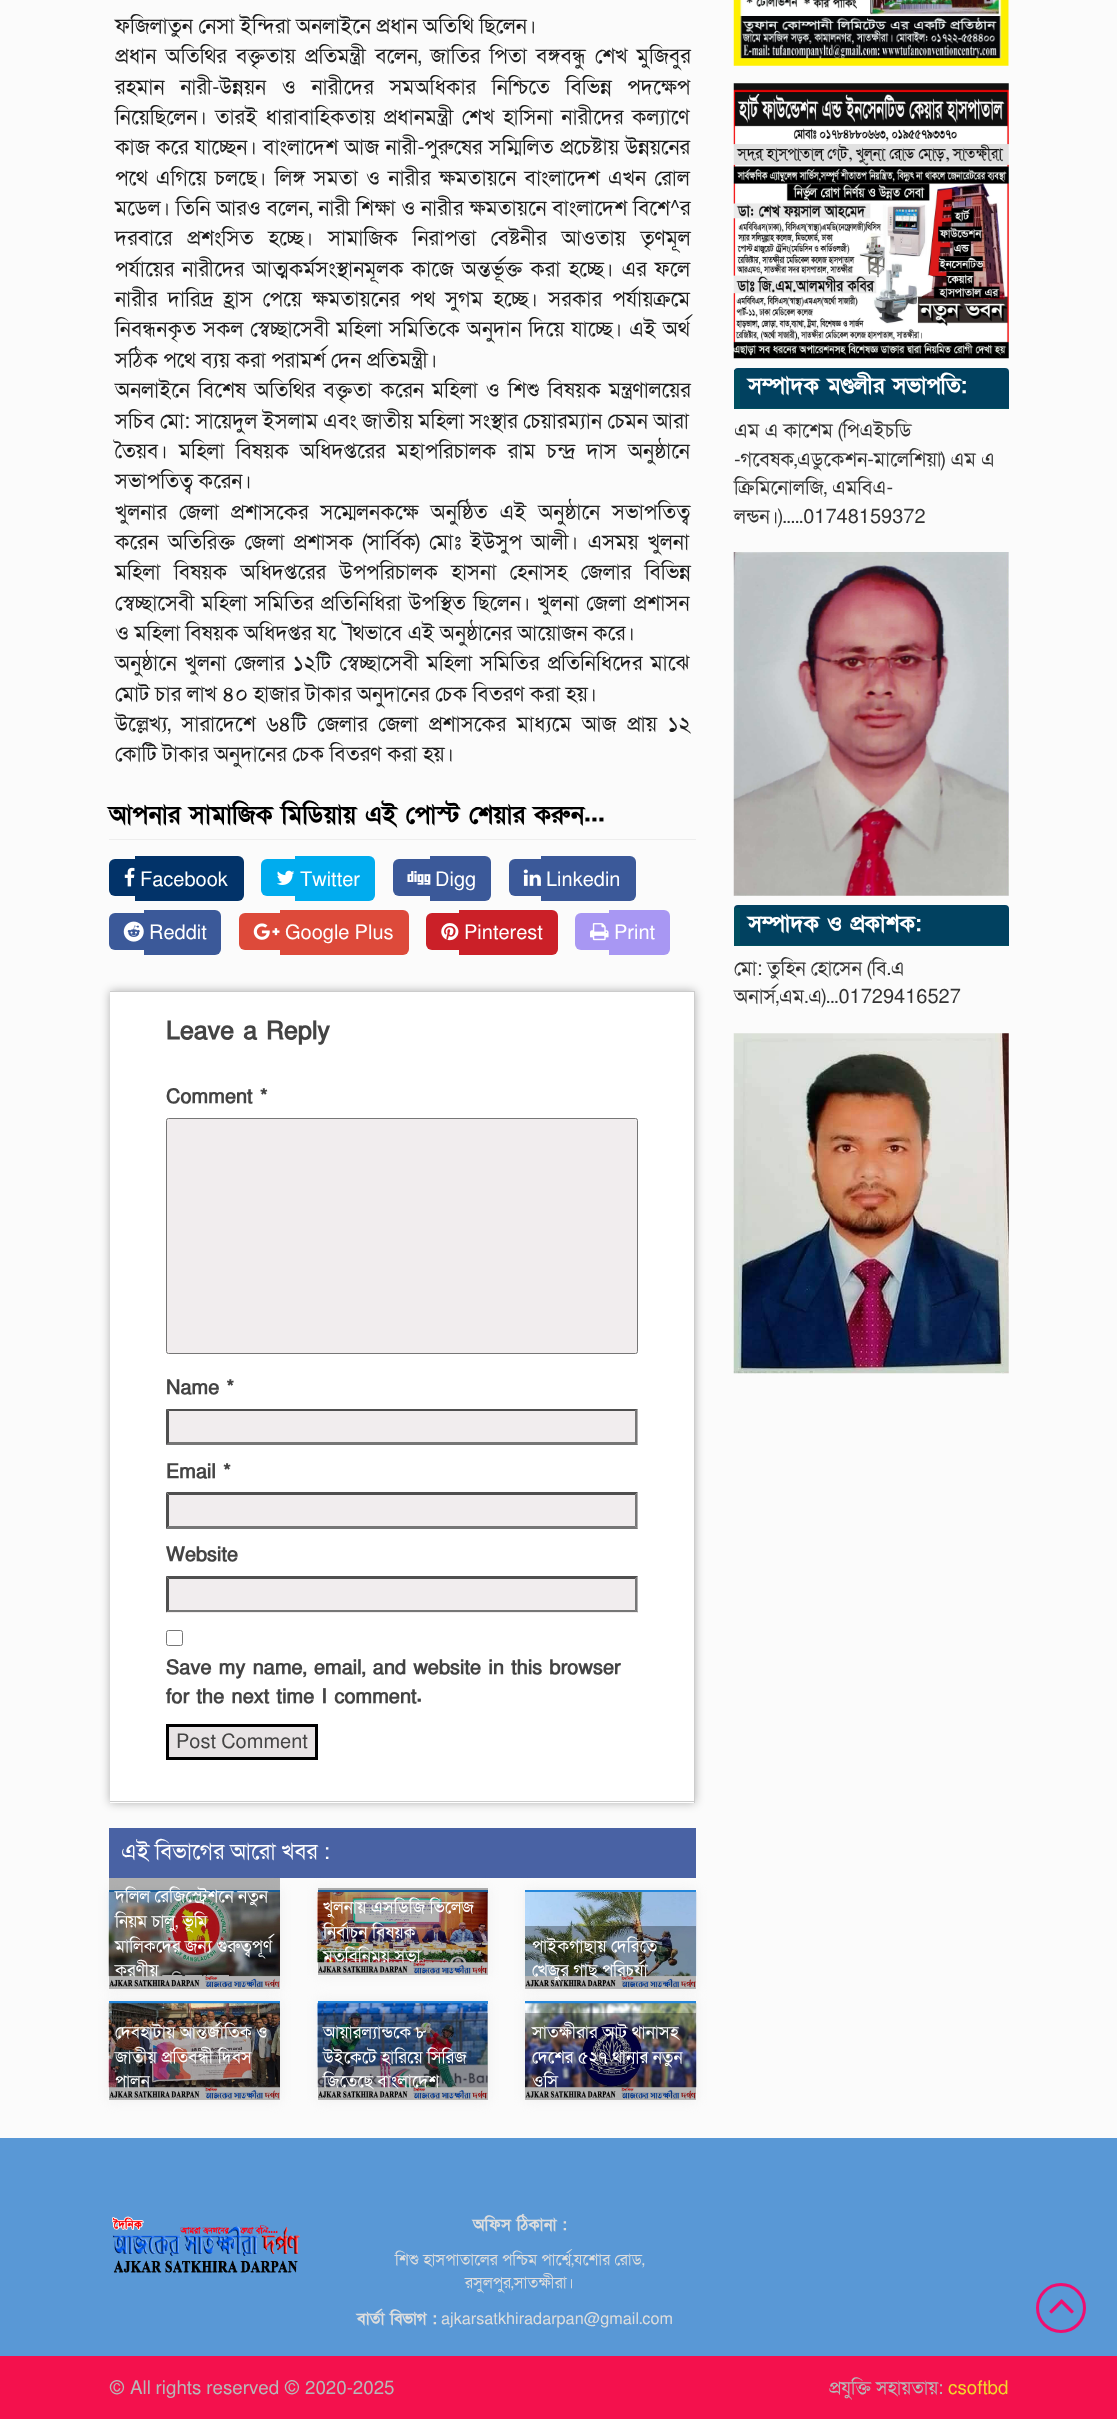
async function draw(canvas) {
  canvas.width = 1117;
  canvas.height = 2419;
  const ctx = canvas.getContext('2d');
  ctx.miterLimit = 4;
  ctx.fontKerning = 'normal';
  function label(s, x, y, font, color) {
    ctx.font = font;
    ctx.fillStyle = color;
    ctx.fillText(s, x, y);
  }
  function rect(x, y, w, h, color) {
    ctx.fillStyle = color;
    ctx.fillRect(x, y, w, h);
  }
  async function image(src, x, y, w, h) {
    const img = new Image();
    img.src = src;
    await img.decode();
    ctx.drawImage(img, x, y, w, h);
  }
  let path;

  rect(0, 0, 1117, 2419, '#fbfbfb');
  label('ফজিলাতুন নেসা ইন্দিরা অনলাইনে প্রধান অতিথি ছিলেন।', 115, 33, '21.25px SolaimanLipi', '#202020');
  ctx.wordSpacing = '3.75px';
  label('প্রধান অতিথির বক্তৃতায় প্রতিমন্ত্রী বলেন, জাতির পিতা বঙ্গবন্ধু শেখ মুজিবুর', 115, 63, '21.25px SolaimanLipi', '#202020');
  ctx.wordSpacing = '10.25px';
  label('রহমান নারী-উন্নয়ন ও নারীদের সমঅধিকার নিশ্চিতে বিভিন্ন পদক্ষেপ', 115, 94, '21.25px SolaimanLipi', '#202020');
  ctx.wordSpacing = '3px';
  label('নিয়েছিলেন। তারই ধারাবাহিকতায় প্রধানমন্ত্রী শেখ হাসিনা নারীদের কল্যাণে', 115, 124, '21.25px SolaimanLipi', '#202020');
  ctx.wordSpacing = '0.75px';
  label('কাজ করে যাচ্ছেন। বাংলাদেশ আজ নারী-পুরুষের সম্মিলিত প্রচেষ্টায় উন্নয়নের', 115, 154, '21.25px SolaimanLipi', '#202020');
  ctx.wordSpacing = '2.75px';
  label('পথে এগিয়ে চলছে। লিঙ্গ সমতা ও নারীর ক্ষমতায়নে বাংলাদেশ এখন রোল', 115, 185, '21.25px SolaimanLipi', '#202020');
  ctx.wordSpacing = '0.25px';
  label('মডেল। তিনি আরও বলেন, নারী শিক্ষা ও নারীর ক্ষমতায়নে বাংলাদেশ বিশে^র', 115, 215, '21.25px SolaimanLipi', '#202020');
  ctx.wordSpacing = '9.25px';
  label('দরবারে প্রশংসিত হচ্ছে। সামাজিক নিরাপত্তা বেষ্টনীর আওতায় তৃণমূল', 115, 245, '21.25px SolaimanLipi', '#202020');
  ctx.wordSpacing = '2.5px';
  label('পর্যায়ের নারীদের আত্মকর্মসংস্থানমূলক কাজে অন্তর্ভূক্ত করা হচ্ছে। এর ফলে', 115, 276, '21.25px SolaimanLipi', '#202020');
  ctx.wordSpacing = '4.75px';
  label('নারীর দারিদ্র হ্রাস পেয়ে ক্ষমতায়নের পথ সুগম হচ্ছে। সরকার পর্যায়ক্রমে', 115, 306, '21.25px SolaimanLipi', '#202020');
  ctx.wordSpacing = '1.5px';
  label('নিবন্ধনকৃত সকল স্বেচ্ছাসেবী মহিলা সমিতিকে অনুদান দিয়ে যাচ্ছে। এই অর্থ', 115, 336, '21.25px SolaimanLipi', '#202020');
  ctx.wordSpacing = '0px';
  label('সঠিক পথে ব্যয় করা পরামর্শ দেন প্রতিমন্ত্রী।', 115, 367, '21.25px SolaimanLipi', '#202020');
  ctx.wordSpacing = '2.75px';
  label('অনলাইনে বিশেষ অতিথির বক্তৃতা করেন মহিলা ও শিশু বিষয়ক মন্ত্রণালয়ের', 115, 397, '21.25px SolaimanLipi', '#202020');
  ctx.wordSpacing = '0px';
  label('সচিব মো: সায়েদুল ইসলাম এবং জাতীয় মহিলা সংস্থার চেয়ারম্যান চেমন আরা', 115, 428, '21.25px SolaimanLipi', '#202020');
  ctx.wordSpacing = '5.75px';
  label('তৈয়ব। মহিলা বিষয়ক অধিদপ্তরের মহাপরিচালক রাম চন্দ্র দাস অনুষ্ঠানে', 115, 458, '21.25px SolaimanLipi', '#202020');
  ctx.wordSpacing = '0px';
  label('সভাপতিত্ব করেন।', 115, 488, '21.25px SolaimanLipi', '#202020');
  ctx.wordSpacing = '6.5px';
  label('খুলনার জেলা প্রশাসকের সম্মেলনকক্ষে অনুষ্ঠিত এই অনুষ্ঠানে সভাপতিত্ব', 115, 519, '21.25px SolaimanLipi', '#202020');
  ctx.wordSpacing = '3.75px';
  label('করেন অতিরিক্ত জেলা প্রশাসক (সার্বিক) মোঃ ইউসুপ আলী। এসময় খুলনা', 115, 549, '21.25px SolaimanLipi', '#202020');
  ctx.wordSpacing = '8px';
  label('মহিলা বিষয়ক অধিদপ্তরের উপপরিচালক হাসনা হেনাসহ জেলার বিভিন্ন', 115, 579, '21.25px SolaimanLipi', '#202020');
  ctx.wordSpacing = '1.75px';
  label('স্বেচ্ছাসেবী মহিলা সমিতির প্রতিনিধিরা উপস্থিত ছিলেন। খুলনা জেলা প্রশাসন', 115, 610, '21.25px SolaimanLipi', '#202020');
  ctx.wordSpacing = '0px';
  label('ও মহিলা বিষয়ক অধিদপ্তর যৌথভাবে এই অনুষ্ঠানের আয়োজন করে।', 115, 640, '21.25px SolaimanLipi', '#202020');
  ctx.wordSpacing = '2.5px';
  label('অনুষ্ঠানে খুলনা জেলার ১২টি স্বেচ্ছাসেবী মহিলা সমিতির প্রতিনিধিদের মাঝে', 115, 670, '21.25px SolaimanLipi', '#202020');
  ctx.wordSpacing = '0px';
  label('মোট চার লাখ ৪০ হাজার টাকার অনুদানের চেক বিতরণ করা হয়।', 115, 701, '21.25px SolaimanLipi', '#202020');
  ctx.wordSpacing = '5px';
  label('উল্লেখ্য, সারাদেশে ৬৪টি জেলার জেলা প্রশাসকের মাধ্যমে আজ প্রায় ১২', 115, 731, '21.25px SolaimanLipi', '#202020');
  ctx.wordSpacing = '0px';
  label('কোটি টাকার অনুদানের চেক বিতরণ করা হয়।', 115, 761, '21.25px SolaimanLipi', '#202020');
  rect(109, 839, 587, 1, '#ededed');
  label('আপনার সামাজিক মিডিয়ায় এই পোস্ট শেয়ার করুন...', 109, 823, 'bold 25px SolaimanLipi', '#000');
  ctx.fillStyle = '#023369';
  ctx.beginPath();
  ctx.roundRect(109, 859, 26, 37, [6, 0, 0, 6]);
  ctx.fill();
  ctx.beginPath();
  ctx.roundRect(135, 856, 109, 45, [0, 6, 6, 0]);
  ctx.fill();
  await image('assets/img1.png', 124, 867, 11, 20);
  label('Facebook', 140, 886, '20px SolaimanLipi', '#fff');
  ctx.fillStyle = '#00acee';
  ctx.beginPath();
  ctx.roundRect(261, 859, 34, 37, [6, 0, 0, 6]);
  ctx.fill();
  ctx.beginPath();
  ctx.roundRect(295, 856, 80, 45, [0, 6, 6, 0]);
  ctx.fill();
  await image('assets/img2.png', 277, 870, 18, 15);
  label('Twitter', 300, 886, '20px SolaimanLipi', '#fff');
  ctx.fillStyle = '#3b5999';
  ctx.beginPath();
  ctx.roundRect(393, 859, 37, 37, [6, 0, 0, 6]);
  ctx.fill();
  ctx.beginPath();
  ctx.roundRect(430, 856, 61, 45, [0, 6, 6, 0]);
  ctx.fill();
  await image('assets/img3.png', 407, 871, 24, 14);
  label('Digg', 435, 886, '20px SolaimanLipi', '#fff');
  ctx.fillStyle = '#3b5999';
  ctx.beginPath();
  ctx.roundRect(509, 859, 32, 37, [6, 0, 0, 6]);
  ctx.fill();
  ctx.beginPath();
  ctx.roundRect(541, 856, 95, 45, [0, 6, 6, 0]);
  ctx.fill();
  await image('assets/img4.png', 523, 869, 18, 17);
  label('Linkedin', 546, 886, '20px SolaimanLipi', '#fff');
  ctx.fillStyle = '#3b5999';
  ctx.beginPath();
  ctx.roundRect(109, 913, 35, 37, [6, 0, 0, 6]);
  ctx.fill();
  ctx.beginPath();
  ctx.roundRect(144, 910, 77, 45, [0, 6, 6, 0]);
  ctx.fill();
  await image('assets/img5.png', 123, 921, 21, 21);
  label('Reddit', 149, 939, '20px SolaimanLipi', '#fff');
  ctx.fillStyle = '#dd4a3a';
  ctx.beginPath();
  ctx.roundRect(239, 913, 41, 37, [6, 0, 0, 6]);
  ctx.fill();
  ctx.beginPath();
  ctx.roundRect(280, 910, 129, 45, [0, 6, 6, 0]);
  ctx.fill();
  await image('assets/img6.png', 253, 923, 27, 17);
  label('Google Plus', 285, 939, '20px SolaimanLipi', '#fff');
  ctx.fillStyle = '#cb2028';
  ctx.beginPath();
  ctx.roundRect(426, 913, 33, 37, [6, 0, 0, 6]);
  ctx.fill();
  ctx.beginPath();
  ctx.roundRect(459, 910, 99, 45, [0, 6, 6, 0]);
  ctx.fill();
  await image('assets/img7.png', 441, 923, 18, 18);
  label('Pinterest', 464, 939, '20px SolaimanLipi', '#fff');
  ctx.fillStyle = '#a897f3';
  ctx.beginPath();
  ctx.roundRect(575, 913, 34, 37, [6, 0, 0, 6]);
  ctx.fill();
  ctx.beginPath();
  ctx.roundRect(609, 910, 61, 45, [0, 6, 6, 0]);
  ctx.fill();
  await image('assets/img8.png', 590, 923, 19, 18);
  label('Print', 614, 939, '20px SolaimanLipi', '#fff');
  ctx.fillStyle = '#0000004d';
  ctx.filter = 'blur(5px)';
  ctx.beginPath();
  ctx.rect(110, 991, 585, 812);
  ctx.fill();
  ctx.filter = 'none';
  rect(110, 992, 584, 811, '#fff');
  rect(110, 991, 585, 1, '#ccc');
  rect(694, 991, 1, 812, '#ccc');
  rect(110, 1801, 585, 1, '#ccc');
  label('Leave a Reply', 166, 1039, 'bold 25px SolaimanLipi', '#444');
  label('Comment *', 166, 1103, 'bold 20px SolaimanLipi', '#444');
  ctx.fillStyle = '#f1edee';
  ctx.beginPath();
  ctx.roundRect(166.5, 1118.5, 471, 235, 2);
  ctx.fill();
  ctx.strokeStyle = '#767676';
  ctx.stroke();
  label('Name *', 166, 1394, 'bold 20px SolaimanLipi', '#444');
  rect(166, 1409, 472, 36, '#f1edee');
  ctx.fillStyle = '#4f4f4f';
  path = new Path2D('M166 1409H638L635 1411H169Z');
  ctx.fill(path);
  ctx.fillStyle = '#767676';
  path = new Path2D('M637.5 1409V1445L635 1442.5V1411Z');
  ctx.fill(path);
  path = new Path2D('M638 1445H166L169 1442H635Z');
  ctx.fill(path);
  ctx.fillStyle = '#4f4f4f';
  path = new Path2D('M166 1445V1409L169 1411V1442.5Z');
  ctx.fill(path);
  label('Email *', 166, 1478, 'bold 20px SolaimanLipi', '#444');
  rect(166, 1493, 472, 36, '#f1edee');
  ctx.fillStyle = '#4f4f4f';
  path = new Path2D('M166 1492H638L635 1495H169Z');
  ctx.fill(path);
  ctx.fillStyle = '#767676';
  path = new Path2D('M637.5 1492.5V1529L635 1526V1495Z');
  ctx.fill(path);
  path = new Path2D('M638 1529H166L169 1526H635Z');
  ctx.fill(path);
  ctx.fillStyle = '#4f4f4f';
  path = new Path2D('M166 1529V1492.5L169 1495V1526Z');
  ctx.fill(path);
  label('Website', 166, 1561, 'bold 20px SolaimanLipi', '#444');
  rect(166, 1576, 472, 37, '#f1edee');
  ctx.fillStyle = '#4f4f4f';
  path = new Path2D('M166 1576H638L635 1579H169Z');
  ctx.fill(path);
  ctx.fillStyle = '#767676';
  path = new Path2D('M637.5 1576V1612.5L635 1610V1579Z');
  ctx.fill(path);
  path = new Path2D('M638 1612H166L169 1610H635Z');
  ctx.fill(path);
  ctx.fillStyle = '#4f4f4f';
  path = new Path2D('M166 1612.5V1576L169 1579V1610Z');
  ctx.fill(path);
  ctx.beginPath();
  ctx.roundRect(166.5, 1630.5, 16, 15, 2);
  ctx.stroke();
  label('Save my name, email, and website in this browser', 166, 1674, 'bold 20px SolaimanLipi', '#444');
  label('for the next time I comment.', 166, 1703, 'bold 20px SolaimanLipi', '#444');
  ctx.fillStyle = '#e8e4e5';
  ctx.beginPath();
  ctx.rect(167.5, 1725.5, 149, 33);
  ctx.fill();
  ctx.strokeStyle = '#000';
  ctx.lineWidth = 3;
  ctx.stroke();
  label('Post Comment', 176, 1748, '20px SolaimanLipi', '#444');
  rect(109, 1828, 587, 50, '#4962a4');
  label('এই বিভাগের আরো খবর :', 121, 1859, '22.5px SolaimanLipi', '#fff');
  ctx.fillStyle = '#efefef';
  ctx.filter = 'blur(6px)';
  ctx.beginPath();
  ctx.rect(109, 1890, 171, 99);
  ctx.fill();
  ctx.filter = 'none';
  rect(109, 1988, 171, 1, '#fff');
  rect(109, 1890, 171, 2, '#2487db');
  await image('assets/img9.png', 108, 1892, 172, 96);
  rect(109, 1878, 171, 111, '#0000004d');
  label('দলিল রেজিস্ট্রেশনে নতুন', 115, 1902, '17.5px SolaimanLipi', '#fff');
  label('নিয়ম চালু, ভূমি', 115, 1927, '17.5px SolaimanLipi', '#fff');
  label('মালিকদের জন্য গুরুত্বপূর্ণ', 115, 1952, '17.5px SolaimanLipi', '#fff');
  label('করণীয়', 115, 1976, '17.5px SolaimanLipi', '#fff');
  ctx.fillStyle = '#efefef';
  ctx.filter = 'blur(6px)';
  ctx.beginPath();
  ctx.rect(318, 1890, 170, 85);
  ctx.fill();
  ctx.filter = 'none';
  rect(318, 1893, 170, 82, '#fff');
  rect(318, 1890, 170, 3, '#2487db');
  await image('assets/img10.png', 317, 1892, 171, 82);
  rect(318, 1888, 170, 87, '#0000004d');
  label('খুলনায় এসডিজি ভিলেজ', 323, 1913, '17.5px SolaimanLipi', '#fff');
  label('নির্বাচন বিষয়ক', 323, 1938, '17.5px SolaimanLipi', '#fff');
  label('মতবিনিময় সভা', 323, 1962, '17.5px SolaimanLipi', '#fff');
  ctx.fillStyle = '#efefef';
  ctx.filter = 'blur(6px)';
  ctx.beginPath();
  ctx.rect(525, 1890, 171, 99);
  ctx.fill();
  ctx.filter = 'none';
  rect(525, 1988, 171, 1, '#fff');
  rect(525, 1890, 171, 2, '#2487db');
  await image('assets/img11.png', 525, 1892, 172, 96);
  rect(525, 1926, 171, 63, '#0000004d');
  label('পাইকগাছায় দেরিতে', 532, 1952, '17.5px SolaimanLipi', '#fff');
  label('খেজুর গাছ পরিচর্যা', 532, 1976, '17.5px SolaimanLipi', '#fff');
  ctx.fillStyle = '#efefef';
  ctx.filter = 'blur(6px)';
  ctx.beginPath();
  ctx.rect(109, 2001, 171, 99);
  ctx.fill();
  ctx.filter = 'none';
  rect(109, 2099, 171, 1, '#fff');
  rect(109, 2001, 171, 3, '#2487db');
  await image('assets/img12.png', 108, 2003, 172, 96);
  rect(109, 2013, 171, 87, '#0000004d');
  label('দেবহাটায় আন্তর্জাতিক ও', 115, 2038, '17.5px SolaimanLipi', '#fff');
  label('জাতীয় প্রতিবন্ধী দিবস', 115, 2063, '17.5px SolaimanLipi', '#fff');
  label('পালন', 115, 2087, '17.5px SolaimanLipi', '#fff');
  ctx.fillStyle = '#efefef';
  ctx.filter = 'blur(6px)';
  ctx.beginPath();
  ctx.rect(318, 2001, 170, 99);
  ctx.fill();
  ctx.filter = 'none';
  rect(318, 2004, 170, 96, '#fff');
  rect(318, 2001, 170, 3, '#2487db');
  await image('assets/img13.png', 317, 2003, 171, 96);
  rect(318, 2013, 170, 87, '#0000004d');
  label('আয়ারল্যান্ডকে ৮', 323, 2038, '17.5px SolaimanLipi', '#fff');
  label('উইকেটে হারিয়ে সিরিজ', 323, 2063, '17.5px SolaimanLipi', '#fff');
  label('জিতেছে বাংলাদেশ', 323, 2087, '17.5px SolaimanLipi', '#fff');
  ctx.fillStyle = '#efefef';
  ctx.filter = 'blur(6px)';
  ctx.beginPath();
  ctx.rect(525, 2001, 171, 99);
  ctx.fill();
  ctx.filter = 'none';
  rect(525, 2099, 171, 1, '#fff');
  rect(525, 2001, 171, 3, '#2487db');
  await image('assets/img14.png', 525, 2003, 172, 96);
  rect(525, 2013, 171, 87, '#0000004d');
  label('সাতক্ষীরার আট থানাসহ', 532, 2038, '17.5px SolaimanLipi', '#fff');
  label('দেশের ৫২৭ থানার নতুন', 532, 2063, '17.5px SolaimanLipi', '#fff');
  label('ওসি', 532, 2087, '17.5px SolaimanLipi', '#fff');
  await image('assets/img15.png', 733, 0, 276, 66);
  await image('assets/img16.png', 733, 83, 276, 276);
  ctx.fillStyle = '#014160';
  ctx.beginPath();
  ctx.roundRect(734, 368, 275, 41, [4, 4, 0, 0]);
  ctx.fill();
  rect(734, 408, 275, 1, '#004f60');
  rect(734, 370, 6, 39, '#004f60');
  label('সম্পাদক মণ্ডলীর সভাপতি:', 748, 393, 'bold 22.5px SolaimanLipi', '#fff');
  label('এম এ কাশেম (পিএইচডি', 734, 437, '20px SolaimanLipi', '#333');
  label('-গবেষক,এডুকেশন-মালেশিয়া) এম এ', 734, 466, '20px SolaimanLipi', '#333');
  label('ক্রিমিনোলজি, এমবিএ-', 734, 494, '20px SolaimanLipi', '#333');
  label('লন্ডন।).....01748159372', 734, 523, '20px SolaimanLipi', '#333');
  await image('assets/img17.png', 733, 552, 276, 344);
  ctx.fillStyle = '#014160';
  ctx.beginPath();
  ctx.roundRect(734, 905, 275, 41, [4, 4, 0, 0]);
  ctx.fill();
  rect(734, 945, 275, 1, '#004f60');
  rect(734, 908, 6, 38, '#004f60');
  label('সম্পাদক ও প্রকাশক:', 748, 931, 'bold 22.5px SolaimanLipi', '#fff');
  label('মো: তুহিন হোসেন (বি.এ', 734, 975, '20px SolaimanLipi', '#333');
  label('অনার্স,এম.এ)...01729416527', 734, 1003, '20px SolaimanLipi', '#333');
  await image('assets/img18.png', 733, 1033, 276, 341);
  rect(0, 2138, 1117, 218, '#5998d6');
  await image('assets/img19.png', 112, 2216, 188, 57);
  label('অফিস ঠিকানা :', 473, 2230, 'bold 16.25px SolaimanLipi', '#ddd');
  label('শিশু হাসপাতালের পশ্চিম পার্শ্বে,যশোর রোড,', 395, 2265, '16.25px SolaimanLipi', '#ddd');
  label('রসুলপুর,সাতক্ষীরা।', 465, 2288, '16.25px SolaimanLipi', '#ddd');
  label('বার্তা বিভাগ :', 357, 2324, 'bold 16.25px SolaimanLipi', '#ddd');
  label('ajkarsatkhiradarpan@gmail.com', 441, 2324, '16.25px SolaimanLipi', '#ddd');
  rect(0, 2356, 1117, 63, '#f4114d');
  ctx.beginPath();
  ctx.arc(1061, 2308, 23.5, 0, 2 * Math.PI);
  ctx.strokeStyle = '#ef0e70';
  ctx.stroke();
  await image('assets/img20.png', 1049, 2299, 25, 15);
  label('© All rights reserved © 2020-2025', 109, 2394, '18.75px SolaimanLipi', '#b8b8b8');
  label('প্রযুক্তি সহায়তায়:', 829, 2394, '18.75px SolaimanLipi', '#b8b8b8');
  label('csoftbd', 948, 2394, '18.75px SolaimanLipi', '#f2d82a');
}

draw(document.querySelector('canvas'));
